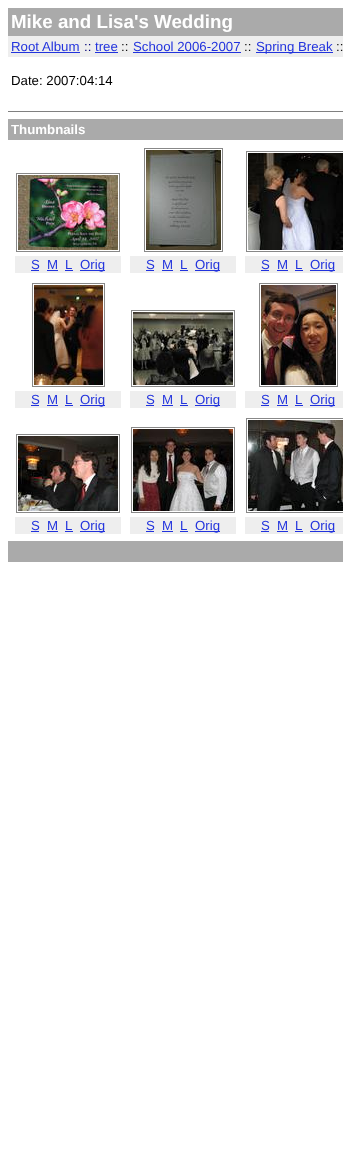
async function draw(canvas) {
  canvas.width = 343;
  canvas.height = 1149;
  const ctx = canvas.getContext('2d');
  ctx.miterLimit = 4;
  ctx.fontKerning = 'normal';
  function label(s, x, y, font, color) {
    ctx.font = font;
    ctx.fillStyle = color;
    ctx.fillText(s, x, y);
  }
  function rect(x, y, w, h, color) {
    ctx.fillStyle = color;
    ctx.fillRect(x, y, w, h);
  }
  async function image(src, x, y, w, h) {
    const img = new Image();
    img.src = src;
    await img.decode();
    ctx.drawImage(img, x, y, w, h);
  }

  rect(0, 0, 343, 1149, '#fff');
  rect(8, 8, 335, 28, '#aaa');
  label('Mike and Lisa\'s Wedding', 11, 28, 'bold 18.75px Liberation Sans', '#fff');
  rect(8, 36, 335, 21, '#eee');
  label('Root Album', 11, 51, '13.25px Liberation Sans', '#23d');
  rect(11, 52, 69, 1, '#23d');
  label('::', 84, 51, '13.25px Liberation Sans', '#007');
  label('tree', 95, 51, '13.25px Liberation Sans', '#23d');
  rect(95, 52, 23, 1, '#23d');
  label('::', 121, 51, '13.25px Liberation Sans', '#111');
  label('School 2006-2007', 133, 51, '13.25px Liberation Sans', '#23d');
  rect(133, 52, 108, 1, '#23d');
  label('::', 244, 51, '13.25px Liberation Sans', '#111');
  rect(256, 52, 77, 1, '#23d');
  label('Spring Break', 256, 51, '13.25px Liberation Sans', '#23d');
  label('::', 336, 51, '13.25px Liberation Sans', '#111');
  label('Date: 2007:04:14', 11, 85, '13.25px Liberation Sans', '#000');
  rect(8, 111, 335, 1, '#808080');
  rect(8, 119, 335, 21, '#aaa');
  label('Thumbnails', 11, 134, 'bold 13.25px Liberation Sans', '#fff');
  ctx.strokeStyle = '#888';
  ctx.strokeRect(16.5, 173.5, 103, 78);
  await image('assets/img1.png', 18, 175, 100, 75);
  rect(15, 256, 106, 17, '#eee');
  label('S', 31, 269, '13.25px Liberation Sans', '#23d');
  rect(31, 270, 8, 1, '#23d');
  label('M', 47, 269, '13.25px Liberation Sans', '#23d');
  rect(47, 270, 11, 1, '#23d');
  label('L', 65, 269, '13.25px Liberation Sans', '#23d');
  rect(65, 270, 8, 1, '#23d');
  rect(80, 270, 25, 1, '#23d');
  label('Orig', 80, 269, '13.25px Liberation Sans', '#23d');
  ctx.strokeRect(144.5, 148.5, 78, 103);
  await image('assets/img2.png', 146, 150, 75, 100);
  rect(130, 256, 106, 17, '#eee');
  label('S', 146, 269, '13.25px Liberation Sans', '#23d');
  rect(146, 270, 8, 1, '#23d');
  label('M', 162, 269, '13.25px Liberation Sans', '#23d');
  rect(162, 270, 11, 1, '#23d');
  label('L', 180, 269, '13.25px Liberation Sans', '#23d');
  rect(180, 270, 8, 1, '#23d');
  rect(195, 270, 25, 1, '#23d');
  label('Orig', 195, 269, '13.25px Liberation Sans', '#23d');
  ctx.strokeRect(246.5, 151.5, 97, 100);
  await image('assets/img3.png', 248, 153, 95, 97);
  rect(245, 256, 98, 17, '#eee');
  label('S', 261, 269, '13.25px Liberation Sans', '#23d');
  rect(261, 270, 8, 1, '#23d');
  label('M', 277, 269, '13.25px Liberation Sans', '#23d');
  rect(277, 270, 11, 1, '#23d');
  label('L', 295, 269, '13.25px Liberation Sans', '#23d');
  rect(295, 270, 8, 1, '#23d');
  rect(310, 270, 25, 1, '#23d');
  label('Orig', 310, 269, '13.25px Liberation Sans', '#23d');
  ctx.strokeRect(32.5, 283.5, 72, 103);
  await image('assets/img4.png', 34, 285, 69, 100);
  rect(15, 391, 106, 17, '#eee');
  label('S', 31, 404, '13.25px Liberation Sans', '#23d');
  rect(31, 405, 8, 1, '#23d');
  label('M', 47, 404, '13.25px Liberation Sans', '#23d');
  rect(47, 405, 11, 1, '#23d');
  label('L', 65, 404, '13.25px Liberation Sans', '#23d');
  rect(65, 405, 8, 1, '#23d');
  rect(80, 405, 25, 1, '#23d');
  label('Orig', 80, 404, '13.25px Liberation Sans', '#23d');
  ctx.strokeRect(131.5, 310.5, 103, 76);
  await image('assets/img5.png', 133, 312, 100, 73);
  rect(130, 391, 106, 17, '#eee');
  label('S', 146, 404, '13.25px Liberation Sans', '#23d');
  rect(146, 405, 8, 1, '#23d');
  label('M', 162, 404, '13.25px Liberation Sans', '#23d');
  rect(162, 405, 11, 1, '#23d');
  label('L', 180, 404, '13.25px Liberation Sans', '#23d');
  rect(180, 405, 8, 1, '#23d');
  rect(195, 405, 25, 1, '#23d');
  label('Orig', 195, 404, '13.25px Liberation Sans', '#23d');
  ctx.strokeRect(259.5, 283.5, 78, 103);
  await image('assets/img6.png', 261, 285, 75, 100);
  rect(245, 391, 98, 17, '#eee');
  label('S', 261, 404, '13.25px Liberation Sans', '#23d');
  rect(261, 405, 8, 1, '#23d');
  label('M', 277, 404, '13.25px Liberation Sans', '#23d');
  rect(277, 405, 11, 1, '#23d');
  label('L', 295, 404, '13.25px Liberation Sans', '#23d');
  rect(295, 405, 8, 1, '#23d');
  rect(310, 405, 25, 1, '#23d');
  label('Orig', 310, 404, '13.25px Liberation Sans', '#23d');
  ctx.strokeRect(16.5, 434.5, 103, 78);
  await image('assets/img7.png', 18, 436, 100, 75);
  rect(15, 517, 106, 17, '#eee');
  label('S', 31, 530, '13.25px Liberation Sans', '#23d');
  rect(31, 531, 8, 1, '#23d');
  label('M', 47, 530, '13.25px Liberation Sans', '#23d');
  rect(47, 531, 11, 1, '#23d');
  label('L', 65, 530, '13.25px Liberation Sans', '#23d');
  rect(65, 531, 8, 1, '#23d');
  rect(80, 531, 25, 1, '#23d');
  label('Orig', 80, 530, '13.25px Liberation Sans', '#23d');
  ctx.strokeRect(131.5, 427.5, 103, 85);
  await image('assets/img8.png', 133, 429, 100, 82);
  rect(130, 517, 106, 17, '#eee');
  label('S', 146, 530, '13.25px Liberation Sans', '#23d');
  rect(146, 531, 8, 1, '#23d');
  label('M', 162, 530, '13.25px Liberation Sans', '#23d');
  rect(162, 531, 11, 1, '#23d');
  label('L', 180, 530, '13.25px Liberation Sans', '#23d');
  rect(180, 531, 8, 1, '#23d');
  rect(195, 531, 25, 1, '#23d');
  label('Orig', 195, 530, '13.25px Liberation Sans', '#23d');
  ctx.strokeRect(246.5, 418.5, 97, 94);
  await image('assets/img9.png', 248, 420, 95, 91);
  rect(245, 517, 98, 17, '#eee');
  label('S', 261, 530, '13.25px Liberation Sans', '#23d');
  rect(261, 531, 8, 1, '#23d');
  label('M', 277, 530, '13.25px Liberation Sans', '#23d');
  rect(277, 531, 11, 1, '#23d');
  label('L', 295, 530, '13.25px Liberation Sans', '#23d');
  rect(295, 531, 8, 1, '#23d');
  rect(310, 531, 25, 1, '#23d');
  label('Orig', 310, 530, '13.25px Liberation Sans', '#23d');
  rect(8, 541, 335, 21, '#aaa');
}

draw(document.querySelector('canvas'));
